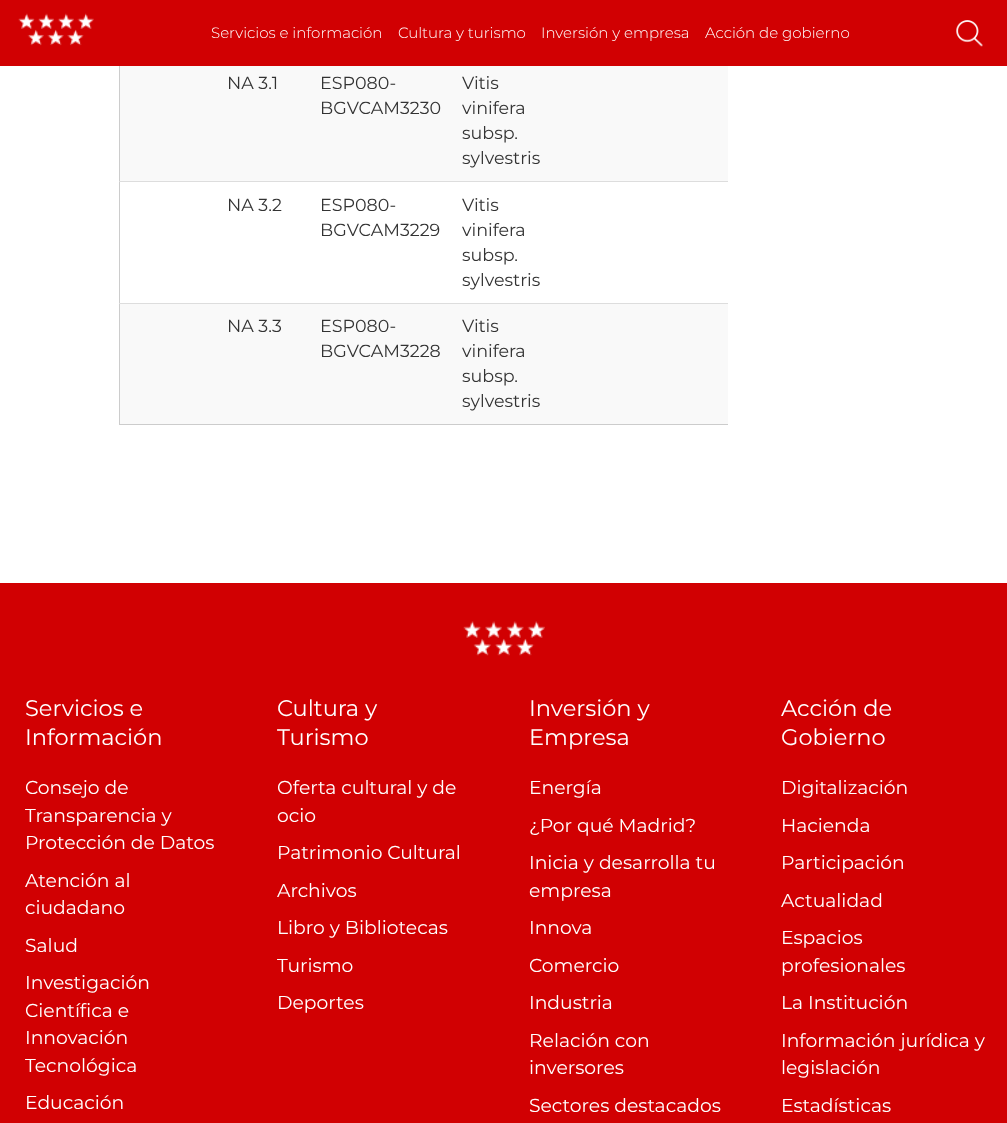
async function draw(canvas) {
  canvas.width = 1007;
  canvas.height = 1123;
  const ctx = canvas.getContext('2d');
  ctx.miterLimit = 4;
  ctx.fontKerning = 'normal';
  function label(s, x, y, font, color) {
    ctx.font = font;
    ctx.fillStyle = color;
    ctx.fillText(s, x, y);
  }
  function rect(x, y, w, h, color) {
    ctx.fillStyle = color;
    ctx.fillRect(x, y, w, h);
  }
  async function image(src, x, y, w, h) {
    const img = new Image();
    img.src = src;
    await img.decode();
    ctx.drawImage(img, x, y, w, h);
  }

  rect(0, 0, 1007, 1123, '#fff');
  rect(0, 0, 1007, 66, '#d10002');
  await image('assets/img1.png', 18, 13, 76, 33);
  label('Servicios e información', 211, 38, '300 15px Montserrat', '#fff');
  label('Cultura y turismo', 398, 38, '300 15px Montserrat', '#fff');
  label('Inversión y empresa', 541, 38, '300 15px Montserrat', '#fff');
  label('Acción de gobierno', 705, 38, '300 15px Montserrat', '#fff');
  await image('assets/img2.png', 956, 20, 27, 27);
  rect(119, 424, 609, 1, '#ccc');
  rect(119, 66, 1, 359, '#ccc');
  rect(120, 66, 608, 115, '#f9f9f9');
  label('NA 3.1', 227, 89, '17.5px Montserrat', '#333');
  label('ESP080-', 320, 89, '17.5px Montserrat', '#333');
  label('BGVCAM3230', 320, 114, '17.5px Montserrat', '#333');
  label('Vitis', 462, 89, '17.5px Montserrat', '#333');
  label('vinifera', 462, 114, '17.5px Montserrat', '#333');
  label('subsp.', 462, 139, '17.5px Montserrat', '#333');
  label('sylvestris', 462, 164, '17.5px Montserrat', '#333');
  rect(119, 181, 609, 1, '#ddd');
  label('NA 3.2', 227, 211, '17.5px Montserrat', '#333');
  label('ESP080-', 320, 211, '17.5px Montserrat', '#333');
  label('BGVCAM3229', 320, 236, '17.5px Montserrat', '#333');
  label('Vitis', 462, 211, '17.5px Montserrat', '#333');
  label('vinifera', 462, 236, '17.5px Montserrat', '#333');
  label('subsp.', 462, 261, '17.5px Montserrat', '#333');
  label('sylvestris', 462, 286, '17.5px Montserrat', '#333');
  rect(120, 304, 608, 120, '#f9f9f9');
  rect(119, 303, 609, 1, '#ddd');
  label('NA 3.3', 227, 332, '17.5px Montserrat', '#333');
  label('ESP080-', 320, 332, '17.5px Montserrat', '#333');
  label('BGVCAM3228', 320, 357, '17.5px Montserrat', '#333');
  label('Vitis', 462, 332, '17.5px Montserrat', '#333');
  label('vinifera', 462, 357, '17.5px Montserrat', '#333');
  label('subsp.', 462, 382, '17.5px Montserrat', '#333');
  label('sylvestris', 462, 407, '17.5px Montserrat', '#333');
  rect(0, 583, 1007, 540, '#d10002');
  await image('assets/img3.png', 463, 621, 82, 35);
  label('Servicios e', 25, 716, '22.5px Montserrat', '#fff');
  label('Información', 25, 745, '22.5px Montserrat', '#fff');
  label('Consejo de', 25, 794, '18.75px Montserrat', '#fff');
  label('Transparencia y', 25, 822, '18.75px Montserrat', '#fff');
  label('Protección de Datos', 25, 849, '18.75px Montserrat', '#fff');
  label('Atención al', 25, 887, '18.75px Montserrat', '#fff');
  label('ciudadano', 25, 914, '18.75px Montserrat', '#fff');
  label('Salud', 25, 952, '18.75px Montserrat', '#fff');
  label('Investigación', 25, 989, '18.75px Montserrat', '#fff');
  label('Científica e', 25, 1017, '18.75px Montserrat', '#fff');
  label('Innovación', 25, 1044, '18.75px Montserrat', '#fff');
  label('Tecnológica', 25, 1072, '18.75px Montserrat', '#fff');
  label('Educación', 25, 1109, '18.75px Montserrat', '#fff');
  label('Cultura y', 277, 716, '22.5px Montserrat', '#fff');
  label('Turismo', 277, 745, '22.5px Montserrat', '#fff');
  label('Oferta cultural y de', 277, 794, '18.75px Montserrat', '#fff');
  label('ocio', 277, 822, '18.75px Montserrat', '#fff');
  label('Patrimonio Cultural', 277, 859, '18.75px Montserrat', '#fff');
  label('Archivos', 277, 897, '18.75px Montserrat', '#fff');
  label('Libro y Bibliotecas', 277, 934, '18.75px Montserrat', '#fff');
  label('Turismo', 277, 972, '18.75px Montserrat', '#fff');
  label('Deportes', 277, 1009, '18.75px Montserrat', '#fff');
  label('Inversión y', 529, 716, '22.5px Montserrat', '#fff');
  label('Empresa', 529, 745, '22.5px Montserrat', '#fff');
  label('Energía', 529, 794, '18.75px Montserrat', '#fff');
  label('¿Por qué Madrid?', 529, 832, '18.75px Montserrat', '#fff');
  label('Inicia y desarrolla tu', 529, 869, '18.75px Montserrat', '#fff');
  label('empresa', 529, 897, '18.75px Montserrat', '#fff');
  label('Innova', 529, 934, '18.75px Montserrat', '#fff');
  label('Comercio', 529, 972, '18.75px Montserrat', '#fff');
  label('Industria', 529, 1009, '18.75px Montserrat', '#fff');
  label('Relación con', 529, 1047, '18.75px Montserrat', '#fff');
  label('inversores', 529, 1074, '18.75px Montserrat', '#fff');
  label('Sectores destacados', 529, 1112, '18.75px Montserrat', '#fff');
  label('Acción de', 781, 716, '22.5px Montserrat', '#fff');
  label('Gobierno', 781, 745, '22.5px Montserrat', '#fff');
  label('Digitalización', 781, 794, '18.75px Montserrat', '#fff');
  label('Hacienda', 781, 832, '18.75px Montserrat', '#fff');
  label('Participación', 781, 869, '18.75px Montserrat', '#fff');
  label('Actualidad', 781, 907, '18.75px Montserrat', '#fff');
  label('Espacios', 781, 944, '18.75px Montserrat', '#fff');
  label('profesionales', 781, 972, '18.75px Montserrat', '#fff');
  label('La Institución', 781, 1009, '18.75px Montserrat', '#fff');
  label('Información jurídica y', 781, 1047, '18.75px Montserrat', '#fff');
  label('legislación', 781, 1074, '18.75px Montserrat', '#fff');
  label('Estadísticas', 781, 1112, '18.75px Montserrat', '#fff');
}

draw(document.querySelector('canvas'));
